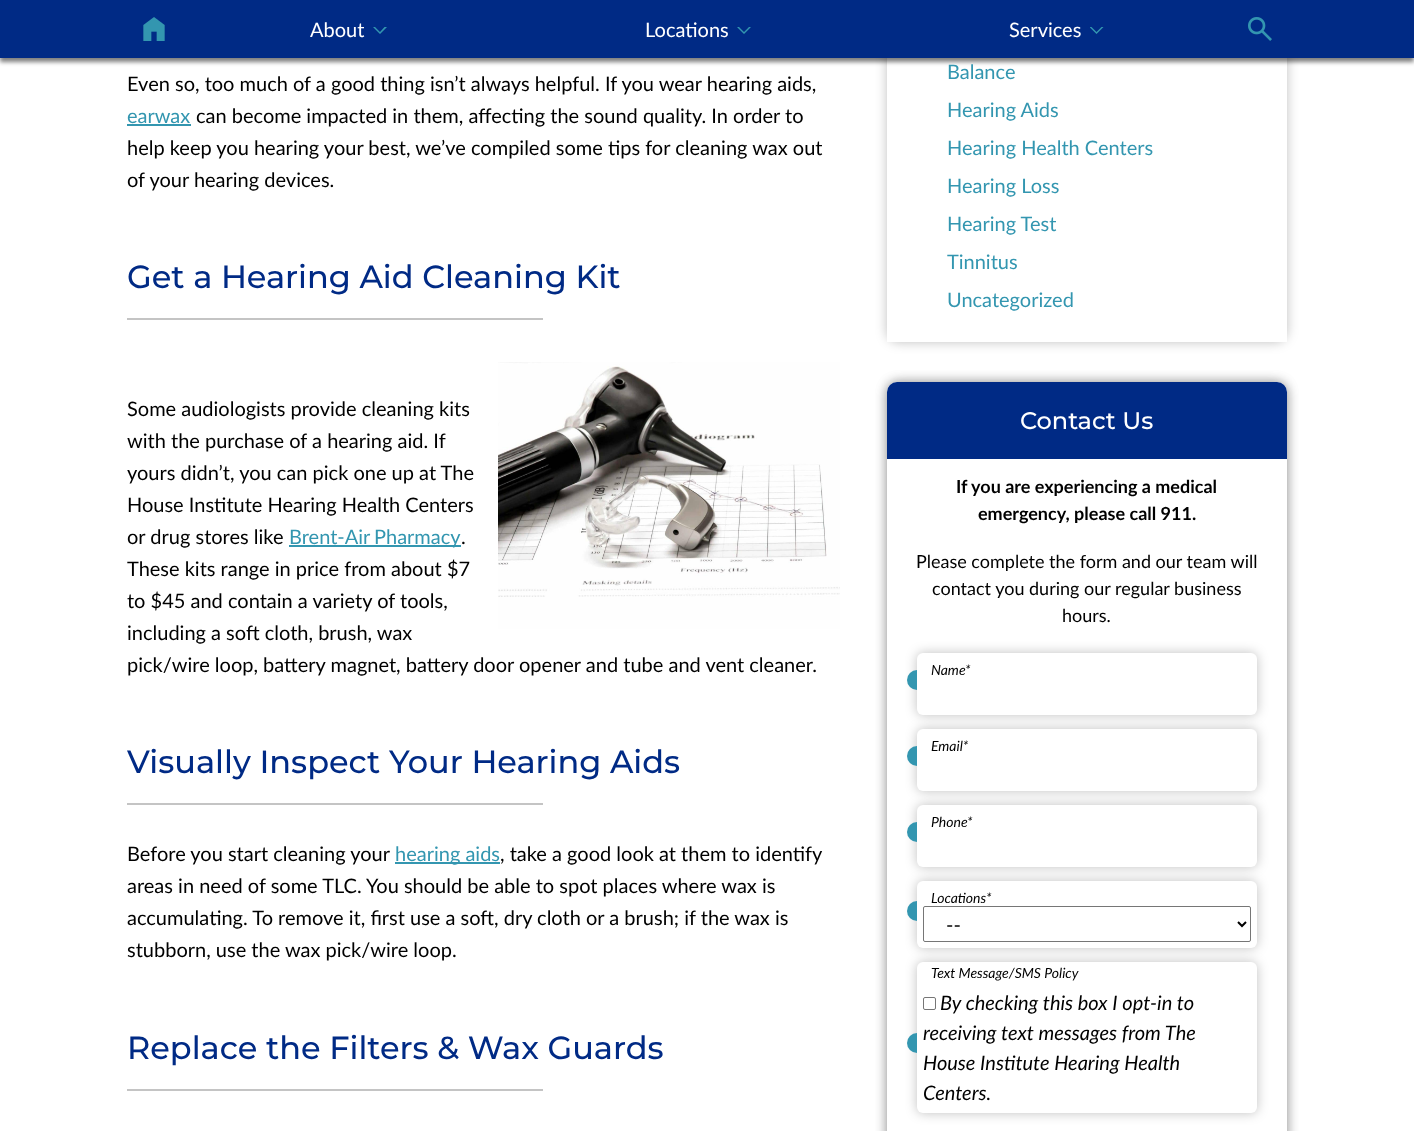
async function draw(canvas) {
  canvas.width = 1414;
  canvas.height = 1131;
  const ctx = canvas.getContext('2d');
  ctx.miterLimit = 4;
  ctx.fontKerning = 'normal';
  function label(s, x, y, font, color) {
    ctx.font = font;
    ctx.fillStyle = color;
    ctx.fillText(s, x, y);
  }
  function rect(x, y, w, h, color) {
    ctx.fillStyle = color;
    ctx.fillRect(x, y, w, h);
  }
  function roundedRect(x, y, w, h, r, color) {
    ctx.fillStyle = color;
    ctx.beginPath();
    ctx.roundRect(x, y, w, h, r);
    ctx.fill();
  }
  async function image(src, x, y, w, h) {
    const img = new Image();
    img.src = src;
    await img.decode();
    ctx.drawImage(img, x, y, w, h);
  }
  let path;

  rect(0, 0, 1414, 1131, '#fff');
  ctx.fillStyle = '#00000080';
  ctx.filter = 'blur(2px)';
  ctx.beginPath();
  ctx.rect(0, 4, 1414, 58);
  ctx.fill();
  ctx.filter = 'none';
  ctx.save();
  path = new Path2D('M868 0H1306V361H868ZM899-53H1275C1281.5-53 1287-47.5 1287-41V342H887V-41C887-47.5 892.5-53 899-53Z');
  ctx.clip(path, 'evenodd');
  ctx.fillStyle = '#00000040';
  ctx.filter = 'blur(6px)';
  ctx.beginPath();
  ctx.roundRect(887, -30, 400, 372, 12);
  ctx.fill();
  ctx.filter = 'none';
  ctx.restore();
  rect(0, 0, 1414, 58, '#002a85');
  await image('assets/img1.png', 143, 17, 22, 24);
  label('About', 310, 37, '20px Lato', '#fff');
  ctx.fillStyle = '#3396b0';
  path = new Path2D('M373 27H375L380 32L384.5 27H387L380 34Z');
  ctx.fill(path);
  label('Locations', 645, 37, '20px Lato', '#fff');
  ctx.fillStyle = '#3396b0';
  path = new Path2D('M737 27H739L744 32L749 27H751L744 34Z');
  ctx.fill(path);
  label('Services', 1009, 37, '20px Lato', '#fff');
  ctx.fillStyle = '#3396b0';
  path = new Path2D('M1090 27H1091.5L1096.5 32L1101.5 27H1103.5L1096.5 34L1090 27.5Z');
  ctx.fill(path);
  await image('assets/img2.png', 1248, 17, 24, 24);
  label('Even so, too much of a good thing isn’t always helpful. If you wear hearing aids,', 127, 91, '20px Lato', '#000');
  label('earwax', 127, 123, '20px Lato', '#3396b0');
  rect(127, 124, 64, 2, '#3396b0');
  label('can become impacted in them, affecting the sound quality. In order to', 196, 123, '20px Lato', '#000');
  label('help keep you hearing your best, we’ve compiled some tips for cleaning wax out', 127, 155, '20px Lato', '#000');
  label('of your hearing devices.', 127, 187, '20px Lato', '#000');
  label('Get a Hearing Aid Cleaning Kit', 127, 288, '500 32px Montserrat', '#002a85');
  rect(127, 318, 416, 2, '#c4c4c4');
  await image('assets/img3.png', 498, 362, 342, 267);
  label('Some audiologists provide cleaning kits', 127, 416, '20px Lato', '#000');
  label('with the purchase of a hearing aid. If', 127, 448, '20px Lato', '#000');
  label('yours didn’t, you can pick one up at The', 127, 480, '20px Lato', '#000');
  label('House Institute Hearing Health Centers', 127, 512, '20px Lato', '#000');
  label('or drug stores like', 127, 544, '20px Lato', '#000');
  rect(289, 545, 172, 2, '#3396b0');
  ctx.wordSpacing = '-1px';
  label('Brent-Air Pharmacy', 289, 544, '20px Lato', '#3396b0');
  ctx.wordSpacing = '0px';
  label('.', 461, 544, '20px Lato', '#000');
  label('These kits range in price from about $7', 127, 576, '20px Lato', '#000');
  label('to $45 and contain a variety of tools,', 127, 608, '20px Lato', '#000');
  label('including a soft cloth, brush, wax', 127, 640, '20px Lato', '#000');
  label('pick/wire loop, battery magnet, battery door opener and tube and vent cleaner.', 127, 672, '20px Lato', '#000');
  label('Visually Inspect Your Hearing Aids', 127, 773, '500 32px Montserrat', '#002a85');
  rect(127, 803, 416, 2, '#c4c4c4');
  label('Before you start cleaning your', 127, 861, '20px Lato', '#000');
  rect(395, 862, 105, 2, '#3396b0');
  label('hearing aids', 395, 861, '20px Lato', '#3396b0');
  label(', take a good look at them to identify', 500, 861, '20px Lato', '#000');
  label('areas in need of some TLC. You should be able to spot places where wax is', 127, 893, '20px Lato', '#000');
  label('accumulating. To remove it, first use a soft, dry cloth or a brush; if the wax is', 127, 925, '20px Lato', '#000');
  label('stubborn, use the wax pick/wire loop.', 127, 957, '20px Lato', '#000');
  label('Replace the Filters & Wax Guards', 127, 1059, '500 32px Montserrat', '#002a85');
  rect(127, 1089, 416, 2, '#c4c4c4');
  label('Balance', 947, 79, '20px Lato', '#3396b0');
  label('Hearing Aids', 947, 117, '20px Lato', '#3396b0');
  label('Hearing Health Centers', 947, 155, '20px Lato', '#3396b0');
  label('Hearing Loss', 947, 193, '20px Lato', '#3396b0');
  label('Hearing Test', 947, 231, '20px Lato', '#3396b0');
  label('Tinnitus', 947, 269, '20px Lato', '#3396b0');
  label('Uncategorized', 947, 307, '20px Lato', '#3396b0');
  ctx.fillStyle = '#00000040';
  ctx.filter = 'blur(6px)';
  ctx.beginPath();
  ctx.roundRect(887, 382, 400, 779, 12);
  ctx.fill();
  ctx.filter = 'none';
  ctx.filter = 'blur(6px)';
  ctx.beginPath();
  ctx.roundRect(887, 382, 400, 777, 10);
  ctx.fill();
  ctx.filter = 'none';
  ctx.fillStyle = '#fff';
  path = new Path2D('M897 382H1277C1282.5 382 1287 386.5 1287 392V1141H887V392C887 386.5 891.5 382 897 382Z');
  ctx.fill(path);
  ctx.fillStyle = '#002a85';
  ctx.beginPath();
  ctx.roundRect(887, 382, 400, 77, [10, 10, 0, 0]);
  ctx.fill();
  label('Contact Us', 1020, 429, '500 24px Montserrat', '#fff');
  label('If you are experiencing a medical', 956, 493, 'bold 18px Lato', '#000');
  label('emergency, please call 911.', 978, 520, 'bold 18px Lato', '#000');
  label('Please complete the form and our team will', 916, 568, '18px Lato', '#000');
  label('contact you during our regular business', 932, 595, '18px Lato', '#000');
  label('hours.', 1062, 622, '18px Lato', '#000');
  ctx.fillStyle = '#00000040';
  ctx.filter = 'blur(6px)';
  ctx.beginPath();
  ctx.roundRect(917, 653, 340, 62, 6);
  ctx.fill();
  ctx.filter = 'none';
  roundedRect(917, 653, 340, 62, 6, '#fff');
  ctx.fillStyle = '#3396b0';
  ctx.beginPath();
  ctx.roundRect(907, 670, 10, 20, [10, 0, 0, 10]);
  ctx.fill();
  label('Name', 931, 675, 'italic 14px Lato', '#000');
  label('*', 965, 675, 'italic 14px Lato', '#000');
  ctx.fillStyle = '#00000040';
  ctx.filter = 'blur(6px)';
  ctx.beginPath();
  ctx.roundRect(917, 729, 340, 62, 6);
  ctx.fill();
  ctx.filter = 'none';
  roundedRect(917, 729, 340, 62, 6, '#fff');
  ctx.fillStyle = '#3396b0';
  ctx.beginPath();
  ctx.roundRect(907, 746, 10, 20, [10, 0, 0, 10]);
  ctx.fill();
  label('Email*', 931, 751, 'italic 14px Lato', '#000');
  ctx.fillStyle = '#00000040';
  ctx.filter = 'blur(6px)';
  ctx.beginPath();
  ctx.roundRect(917, 805, 340, 62, 6);
  ctx.fill();
  ctx.filter = 'none';
  roundedRect(917, 805, 340, 62, 6, '#fff');
  ctx.fillStyle = '#3396b0';
  ctx.beginPath();
  ctx.roundRect(907, 822, 10, 20, [10, 0, 0, 10]);
  ctx.fill();
  label('Phone', 931, 827, 'italic 14px Lato', '#000');
  label('*', 967, 827, 'italic 14px Lato', '#000');
  ctx.fillStyle = '#00000040';
  ctx.filter = 'blur(6px)';
  ctx.beginPath();
  ctx.roundRect(917, 881, 340, 67, 6);
  ctx.fill();
  ctx.filter = 'none';
  roundedRect(917, 881, 340, 67, 6, '#fff');
  label('Locations*', 931, 903, 'italic 14px Lato', '#000');
  ctx.fillStyle = '#3396b0';
  ctx.beginPath();
  ctx.roundRect(907, 901, 10, 20, [10, 0, 0, 10]);
  ctx.fill();
  ctx.beginPath();
  ctx.roundRect(923.5, 906.5, 327, 35, 1.5);
  ctx.strokeStyle = '#767676';
  ctx.stroke();
  path = new Path2D('M1238 922L1242 926L1246 922');
  ctx.strokeStyle = '#000';
  ctx.lineWidth = 2;
  ctx.stroke(path);
  label('--', 946, 932, '20px Lato', '#000');
  ctx.fillStyle = '#00000040';
  ctx.filter = 'blur(6px)';
  ctx.beginPath();
  ctx.roundRect(917, 962, 340, 151, 6);
  ctx.fill();
  ctx.filter = 'none';
  roundedRect(917, 962, 340, 151, 6, '#fff');
  label('Text Message/SMS Policy', 931, 978, 'italic 14px Lato', '#000');
  ctx.fillStyle = '#3396b0';
  ctx.beginPath();
  ctx.roundRect(907, 1033, 10, 20, [10, 0, 0, 10]);
  ctx.fill();
  ctx.beginPath();
  ctx.roundRect(923.5, 997.5, 12, 12, 1.5);
  ctx.strokeStyle = '#767676';
  ctx.lineWidth = 1;
  ctx.stroke();
  label('By checking this box I opt-in to', 940, 1010, 'italic 20px Lato', '#000');
  label('receiving text messages from The', 923, 1040, 'italic 20px Lato', '#000');
  label('House Institute Hearing Health', 923, 1070, 'italic 20px Lato', '#000');
  label('Centers.', 923, 1100, 'italic 20px Lato', '#000');
}

draw(document.querySelector('canvas'));
